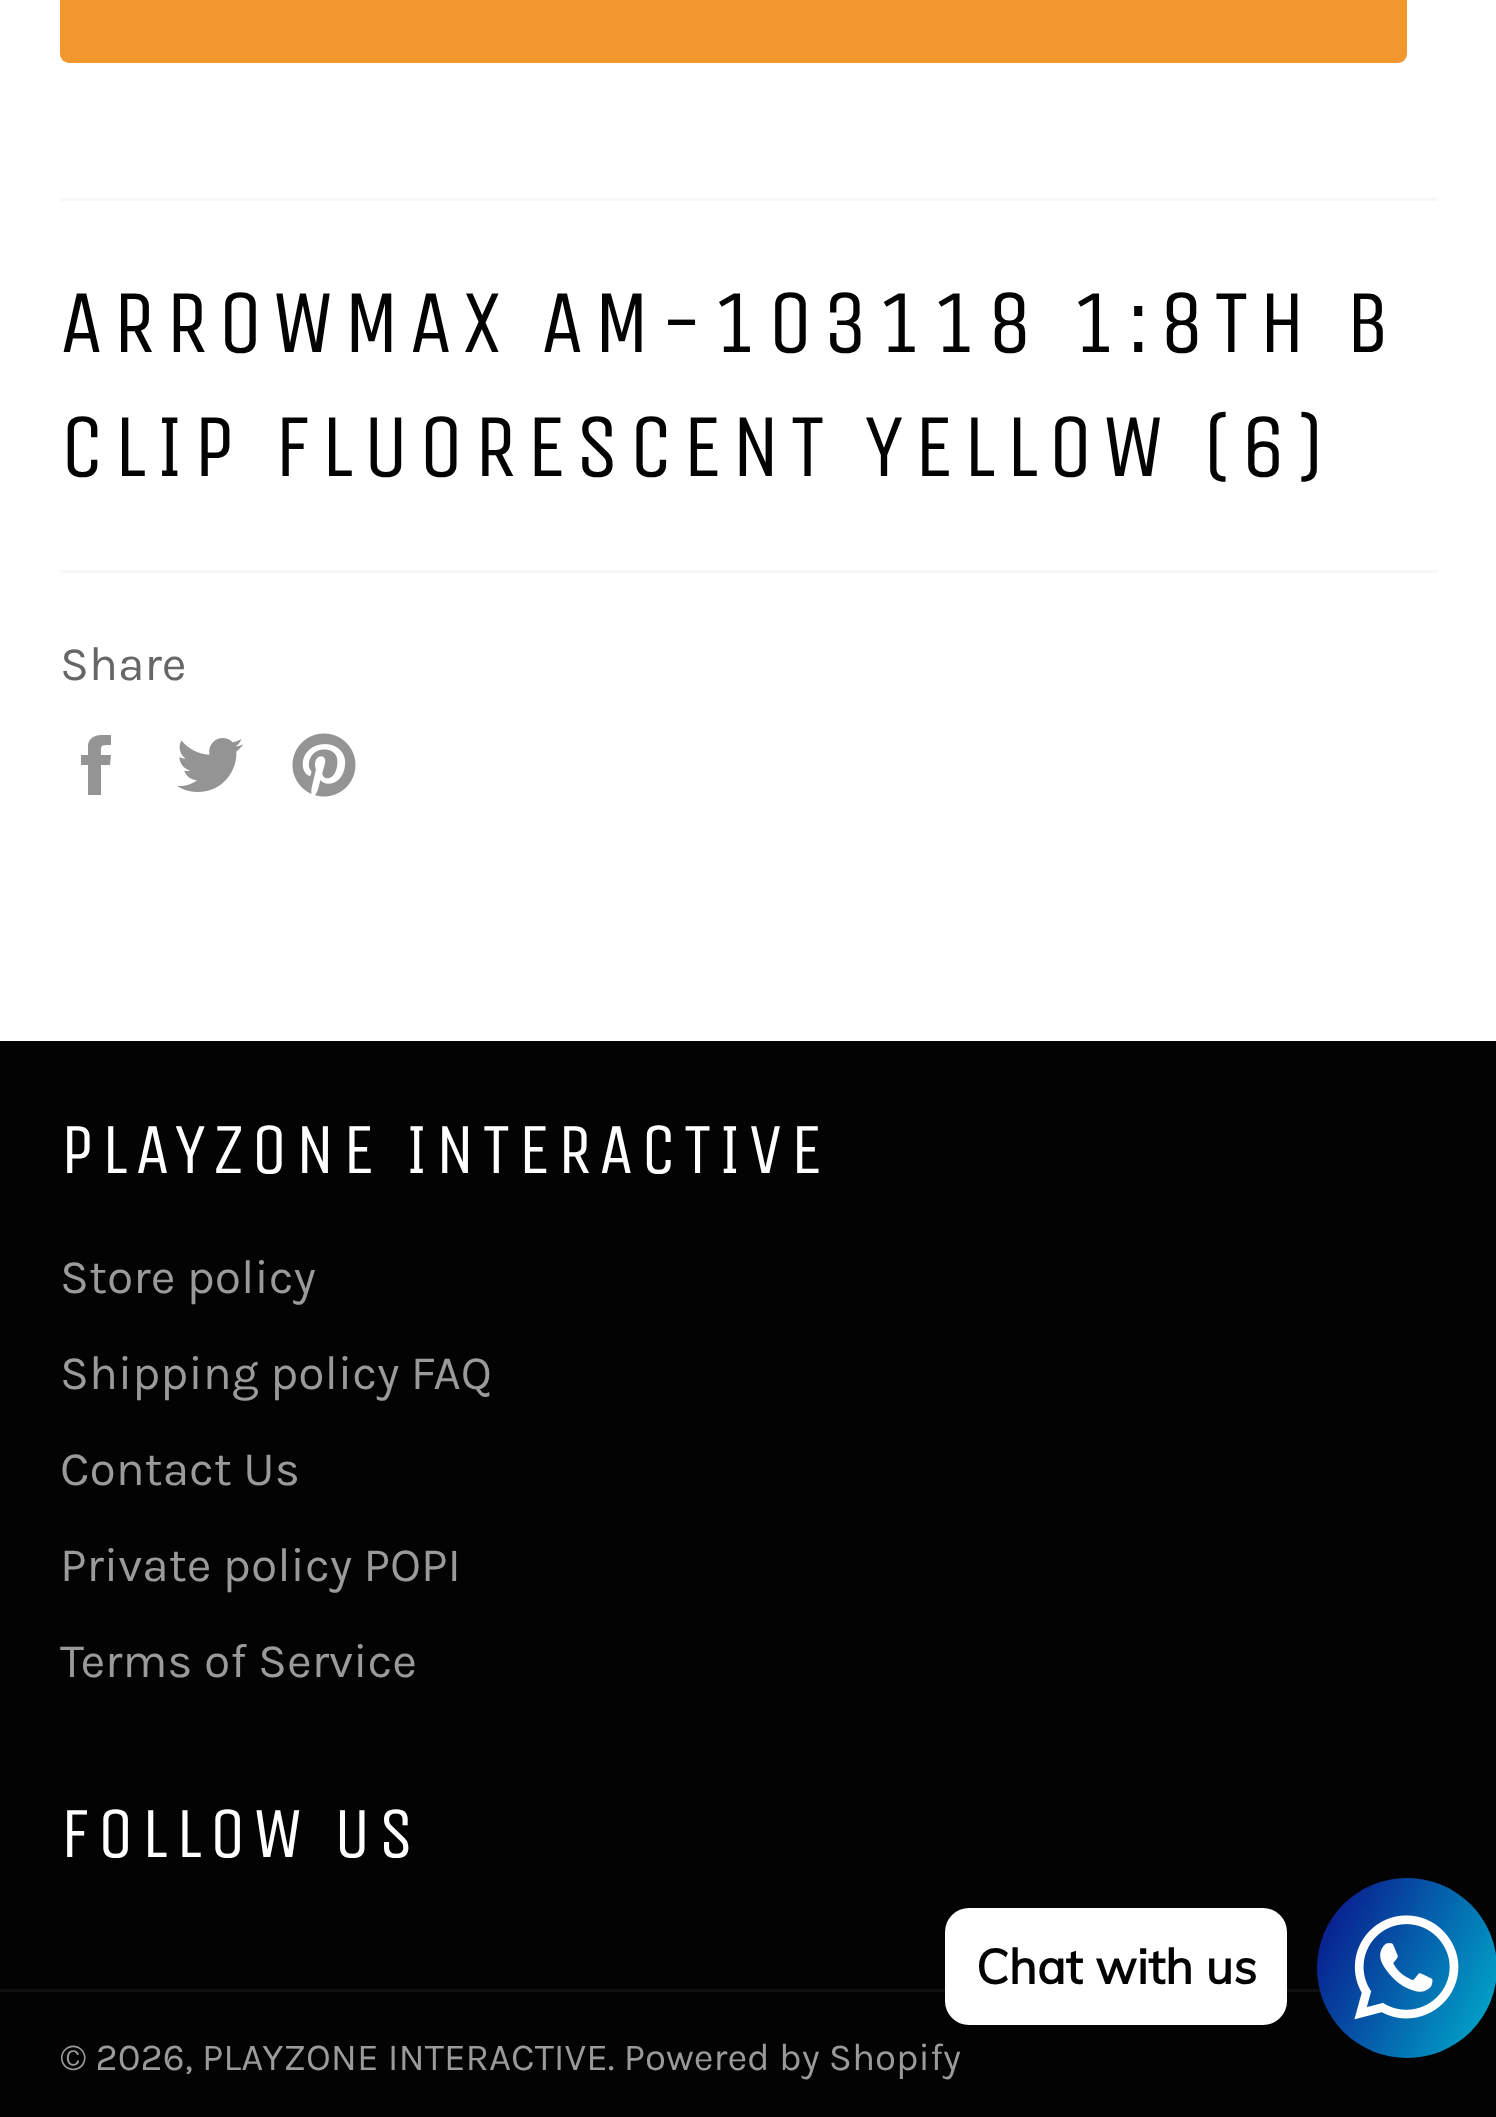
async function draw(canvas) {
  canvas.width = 1496;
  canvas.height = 2117;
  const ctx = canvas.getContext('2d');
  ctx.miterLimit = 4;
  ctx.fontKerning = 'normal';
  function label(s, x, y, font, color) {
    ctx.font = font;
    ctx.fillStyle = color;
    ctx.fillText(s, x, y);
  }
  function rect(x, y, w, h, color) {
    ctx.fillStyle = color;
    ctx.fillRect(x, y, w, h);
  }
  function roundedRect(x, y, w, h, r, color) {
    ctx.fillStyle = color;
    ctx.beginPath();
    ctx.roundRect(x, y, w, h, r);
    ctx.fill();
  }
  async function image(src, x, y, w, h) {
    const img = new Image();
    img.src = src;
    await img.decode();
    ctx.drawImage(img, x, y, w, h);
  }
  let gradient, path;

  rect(0, 0, 1496, 2117, '#fff');
  roundedRect(60, -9, 1347, 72, 9, '#f2972d');
  rect(60, 198, 1377, 3, '#f7f7f7');
  ctx.letterSpacing = '9px';
  label('ARROWMAX AM-103118 1:8TH B', 60, 352, '90px Unica One', '#030303');
  label('CLIP FLUORESCENT YELLOW (6)', 60, 476, '90px Unica One', '#030303');
  rect(60, 570, 1377, 3, '#f7f7f7');
  ctx.letterSpacing = '0px';
  label('Share', 60, 680, '48px Karla', '#666');
  ctx.fillStyle = '#949494';
  path = new Path2D('M101 755C101 745 100 745 111 745V735C102 735 90 733 88 745V755H81V765H88V795H101V765H110L111 755Z');
  ctx.fill(path);
  await image('assets/img1.png', 177, 738, 66, 54);
  await image('assets/img2.png', 292, 733, 64, 64);
  rect(0, 1041, 1496, 1076, '#030303');
  ctx.letterSpacing = '7.25px';
  label('PLAYZONE INTERACTIVE', 60, 1173, '72px Unica One', '#fff');
  ctx.letterSpacing = '0px';
  label('Store policy', 60, 1293, '48px Karla', '#9a9a9a');
  label('Shipping policy FAQ', 60, 1389, '48px Karla', '#9a9a9a');
  label('Contact Us', 60, 1485, '48px Karla', '#9a9a9a');
  label('Private policy POPI', 60, 1581, '48px Karla', '#9a9a9a');
  label('Terms of Service', 60, 1677, '48px Karla', '#9a9a9a');
  ctx.letterSpacing = '7.25px';
  label('FOLLOW US', 60, 1857, '72px Unica One', '#fff');
  rect(0, 1989, 1496, 3, '#101010');
  ctx.letterSpacing = '0px';
  label('© 2026, PLAYZONE INTERACTIVE. Powered by Shopify', 60, 2070, '38.4px Karla', '#9a9a9a');
  gradient = ctx.createLinearGradient(1299, 1917, 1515, 2019);
  gradient.addColorStop(0, '#0a0e88');
  gradient.addColorStop(1, '#00b1ce');
  ctx.fillStyle = gradient;
  ctx.beginPath();
  ctx.arc(1407, 1968, 90, 0, 2 * Math.PI);
  ctx.fill();
  roundedRect(945, 1908, 342, 117, 24, '#fff');
  label('Chat with us', 976, 1984, 'bold 48px Muli', '#030303');
  await image('assets/img3.png', 1354, 1915, 105, 105);
}

draw(document.querySelector('canvas'));
